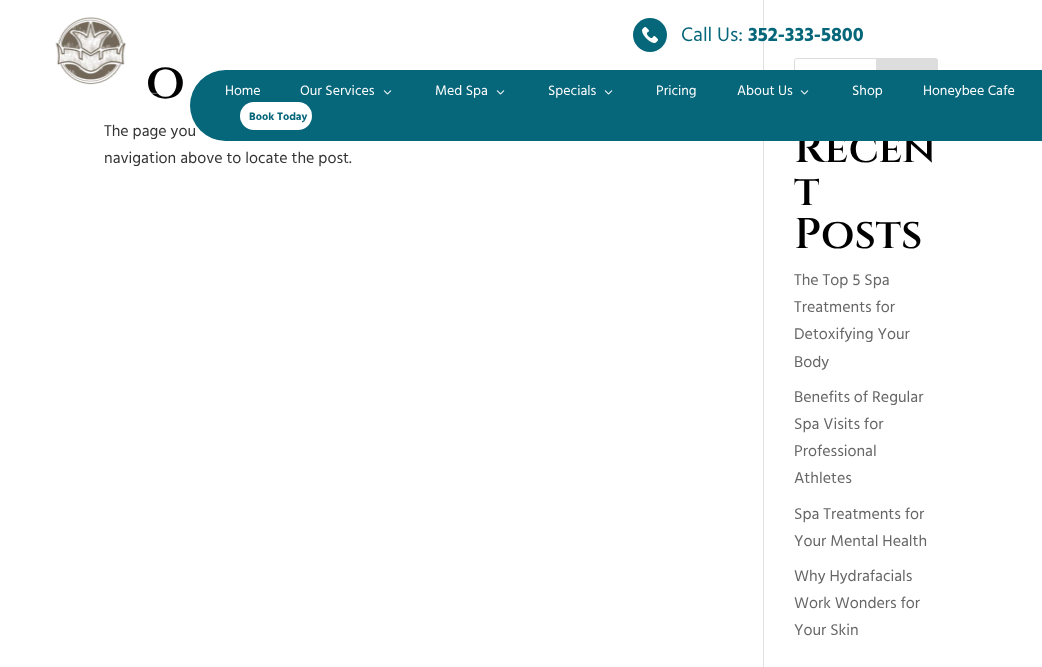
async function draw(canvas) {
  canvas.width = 1042;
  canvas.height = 667;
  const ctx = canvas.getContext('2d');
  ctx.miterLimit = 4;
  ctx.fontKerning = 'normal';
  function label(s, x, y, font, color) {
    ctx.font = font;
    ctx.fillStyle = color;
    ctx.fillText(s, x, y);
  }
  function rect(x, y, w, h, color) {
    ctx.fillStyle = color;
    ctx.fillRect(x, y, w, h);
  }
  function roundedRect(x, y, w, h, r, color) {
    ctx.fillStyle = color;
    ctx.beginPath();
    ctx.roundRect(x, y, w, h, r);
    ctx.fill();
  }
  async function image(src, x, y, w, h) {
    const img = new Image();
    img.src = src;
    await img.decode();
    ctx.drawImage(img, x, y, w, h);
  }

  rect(0, 0, 1042, 667, '#fff');
  label('o', 146, 98, '600 50px Cinzel', '#000');
  await image('assets/img1.png', 55, 17, 103, 81);
  ctx.fillStyle = '#06667a';
  ctx.beginPath();
  ctx.arc(650, 35, 17, 0, 2 * Math.PI);
  ctx.fill();
  await image('assets/img2.png', 642, 27, 16, 16);
  label('Call Us:', 681, 41, '20px Hind Madurai', '#06667a');
  rect(763, 0, 1, 667, '#e2e2e2');
  label('352-333-5800', 748, 41, 'bold 20px Hind Madurai', '#06667a');
  label('The page you', 104, 136, '16px Hind Madurai', '#333');
  ctx.beginPath();
  ctx.roundRect(794.5, 58.5, 143, 39, 2.5);
  ctx.strokeStyle = '#ddd';
  ctx.stroke();
  ctx.fillStyle = '#ddd';
  ctx.beginPath();
  ctx.roundRect(876.5, 58.5, 61, 39, [0, 2.5, 2.5, 0]);
  ctx.fill();
  ctx.stroke();
  label('Recen', 794, 162, '600 43px Cinzel', '#000');
  ctx.fillStyle = '#06667a';
  ctx.beginPath();
  ctx.roundRect(190, 70, 852, 71, [35.5, 0, 0, 35.5]);
  ctx.fill();
  label('Home', 225, 95, '14px Hind Madurai', '#fff');
  label('Our Services', 300, 95, '14px Hind Madurai', '#fff');
  await image('assets/img3.png', 383, 90, 9, 5);
  label('Med Spa', 435, 95, '14px Hind Madurai', '#fff');
  await image('assets/img3.png', 496, 90, 9, 5);
  label('Specials', 548, 95, '14px Hind Madurai', '#fff');
  await image('assets/img3.png', 604, 90, 9, 5);
  label('Pricing', 656, 95, '14px Hind Madurai', '#fff');
  label('About Us', 737, 95, '14px Hind Madurai', '#fff');
  await image('assets/img3.png', 800, 90, 9, 5);
  label('Shop', 852, 95, '14px Hind Madurai', '#fff');
  label('Honeybee Cafe', 923, 95, '14px Hind Madurai', '#fff');
  roundedRect(240, 102, 72, 28, 14, '#fff');
  label('Book Today', 249, 120, 'bold 11px Hind Madurai', '#06667a');
  label('navigation above to locate the post.', 104, 163, '16px Hind Madurai', '#333');
  label('t', 794, 205, '600 43px Cinzel', '#000');
  label('Posts', 794, 248, '600 43px Cinzel', '#000');
  label('The Top 5 Spa', 794, 285, '16px Hind Madurai', '#666');
  label('Treatments for', 794, 312, '16px Hind Madurai', '#666');
  label('Detoxifying Your', 794, 339, '16px Hind Madurai', '#666');
  label('Body', 794, 367, '16px Hind Madurai', '#666');
  label('Benefits of Regular', 794, 402, '16px Hind Madurai', '#666');
  label('Spa Visits for', 794, 429, '16px Hind Madurai', '#666');
  label('Professional', 794, 456, '16px Hind Madurai', '#666');
  label('Athletes', 794, 483, '16px Hind Madurai', '#666');
  label('Spa Treatments for', 794, 519, '16px Hind Madurai', '#666');
  label('Your Mental Health', 794, 546, '16px Hind Madurai', '#666');
  label('Why Hydrafacials', 794, 581, '16px Hind Madurai', '#666');
  label('Work Wonders for', 794, 608, '16px Hind Madurai', '#666');
  label('Your Skin', 794, 635, '16px Hind Madurai', '#666');
}

draw(document.querySelector('canvas'));
